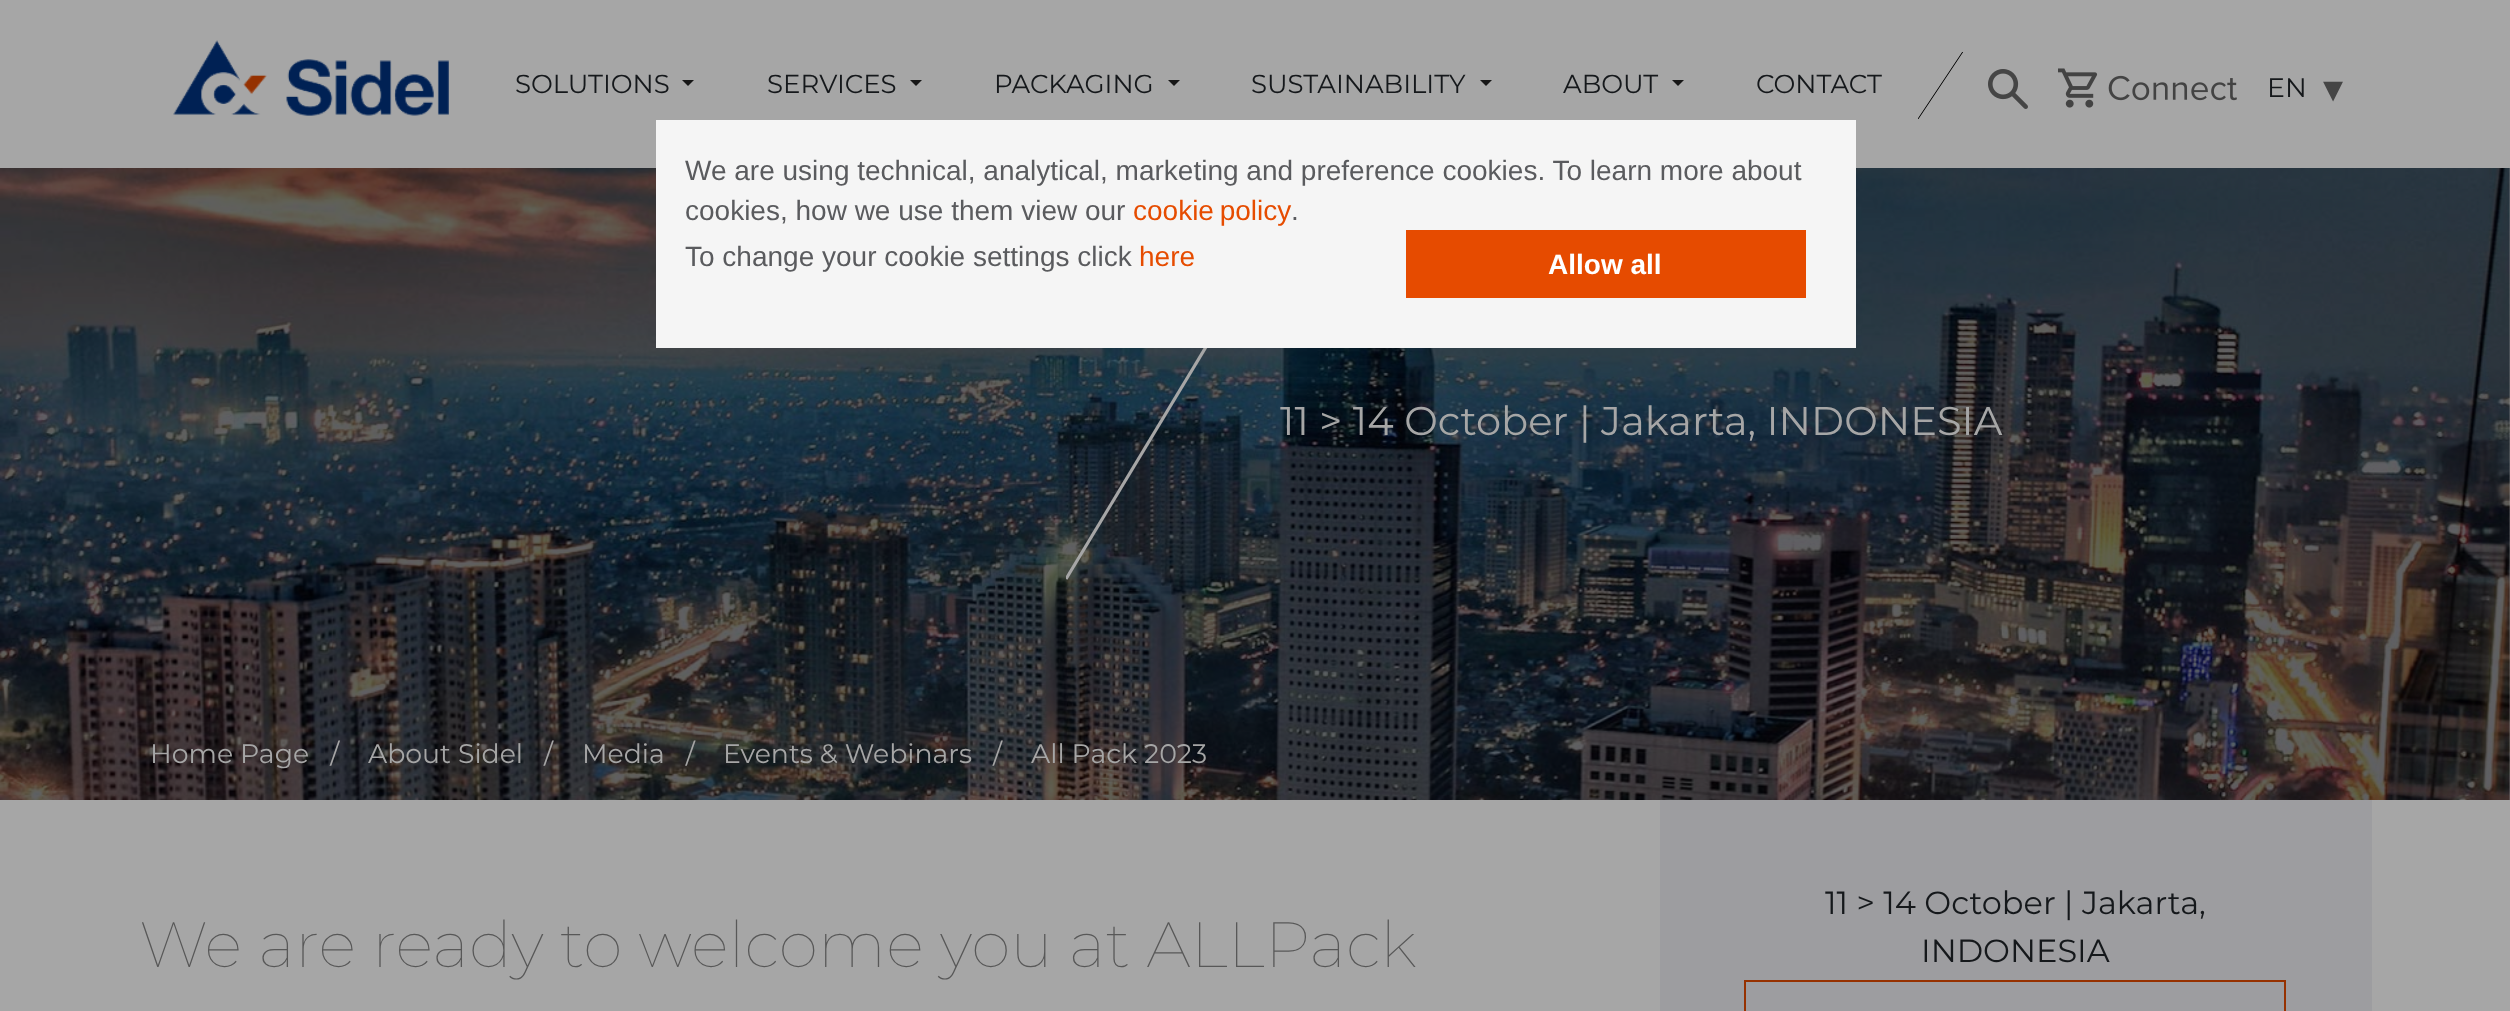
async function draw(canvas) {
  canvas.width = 2510;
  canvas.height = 1011;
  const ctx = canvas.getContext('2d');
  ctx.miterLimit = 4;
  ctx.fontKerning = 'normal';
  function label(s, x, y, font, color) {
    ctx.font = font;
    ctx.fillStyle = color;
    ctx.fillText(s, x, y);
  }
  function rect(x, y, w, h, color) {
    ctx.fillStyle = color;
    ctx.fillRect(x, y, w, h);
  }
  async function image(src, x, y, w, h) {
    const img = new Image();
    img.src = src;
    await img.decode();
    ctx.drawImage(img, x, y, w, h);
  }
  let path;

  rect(0, 0, 2510, 1011, '#a6a6a6');
  await image('assets/img1.png', 173, 40, 276, 76);
  label('SOLUTIONS', 515, 93, '26px Montserrat', '#15181b');
  ctx.fillStyle = '#161616';
  path = new Path2D('M682 80H694L688 86Z');
  ctx.fill(path);
  label('SERVICES', 767, 93, '26px Montserrat', '#15181b');
  ctx.fillStyle = '#161616';
  path = new Path2D('M910 80H922L916 86Z');
  ctx.fill(path);
  label('PACKAGING', 994, 93, '26px Montserrat', '#15181b');
  ctx.fillStyle = '#161616';
  path = new Path2D('M1168 80H1180L1174 86Z');
  ctx.fill(path);
  label('SUSTAINABILITY', 1251, 93, '26px Montserrat', '#15181b');
  ctx.fillStyle = '#161616';
  path = new Path2D('M1480 80H1492L1486 86Z');
  ctx.fill(path);
  label('ABOUT', 1563, 93, '26px Montserrat', '#15181b');
  ctx.fillStyle = '#161616';
  path = new Path2D('M1672 80H1684L1678 86Z');
  ctx.fill(path);
  label('CONTACT', 1756, 93, '26px Montserrat', '#15181b');
  ctx.save();
  ctx.beginPath();
  ctx.rect(1918, 52, 50, 84);
  ctx.clip();
  path = new Path2D('M1918 119L1968 44');
  ctx.strokeStyle = '#000';
  ctx.stroke(path);
  ctx.restore();
  await image('assets/img2.png', 1988, 69, 40, 40);
  await image('assets/img3.png', 2058, 68, 179, 40);
  label('EN', 2267, 97, '26.75px Montserrat', '#15181b');
  label('▾', 2323, 102, '40px DejaVu Sans', '#454545');
  await image('assets/img4.png', 0, 168, 2510, 632);
  ctx.save();
  ctx.beginPath();
  ctx.rect(1066, 298, 170, 282);
  ctx.clip();
  path = new Path2D('M1066 579L1235.5 298');
  ctx.strokeStyle = '#a6a6a6';
  ctx.lineWidth = 3.2;
  ctx.stroke(path);
  ctx.restore();
  rect(656, 120, 1200, 228, '#f5f5f5');
  label('We are using technical, analytical, marketing and preference cookies. To learn more about', 685, 180, '28px Liberation Sans', '#5a5b5e');
  label('cookies, how we use them view our', 685, 220, '28px Liberation Sans', '#5a5b5e');
  ctx.wordSpacing = '-2px';
  label('cookie policy', 1133, 220, '28px Liberation Sans', '#e64c00');
  ctx.wordSpacing = '0px';
  label('.', 1291, 220, '28px Liberation Sans', '#5a5b5e');
  label('To change your cookie settings click', 685, 266, '28px Liberation Sans', '#5a5b5e');
  label('here', 1139, 266, '28px Liberation Sans', '#e64c00');
  rect(1406, 230, 400, 68, '#e64b00');
  label('Allow all', 1548, 274, 'bold 28px Liberation Sans', '#fff');
  label('11 > 14 October | Jakarta, INDONESIA', 1280, 435, '40px Montserrat', '#a6a6a6');
  label('Home Page   /', 150, 763, '26.75px Montserrat', '#a6a6a6');
  label('About Sidel   /', 368, 763, '26.75px Montserrat', '#a6a6a6');
  label('Media   /', 582, 763, '26.75px Montserrat', '#a6a6a6');
  label('Events & Webinars   /', 723, 763, '26.75px Montserrat', '#a6a6a6');
  label('All Pack 2023', 1031, 763, '26.75px Montserrat', '#a6a6a6');
  label('We are ready to welcome you at ALLPack', 139, 967, '100 64px Montserrat', '#585858');
  rect(1660, 800, 712, 211, '#9d9da0');
  label('11 > 14 October | Jakarta,', 1825, 914, '32px Montserrat', '#15181b');
  label('INDONESIA', 1921, 962, '32px Montserrat', '#15181b');
  ctx.strokeStyle = '#963100';
  ctx.lineWidth = 2;
  ctx.strokeRect(1745, 981, 540, 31);
}

draw(document.querySelector('canvas'));
